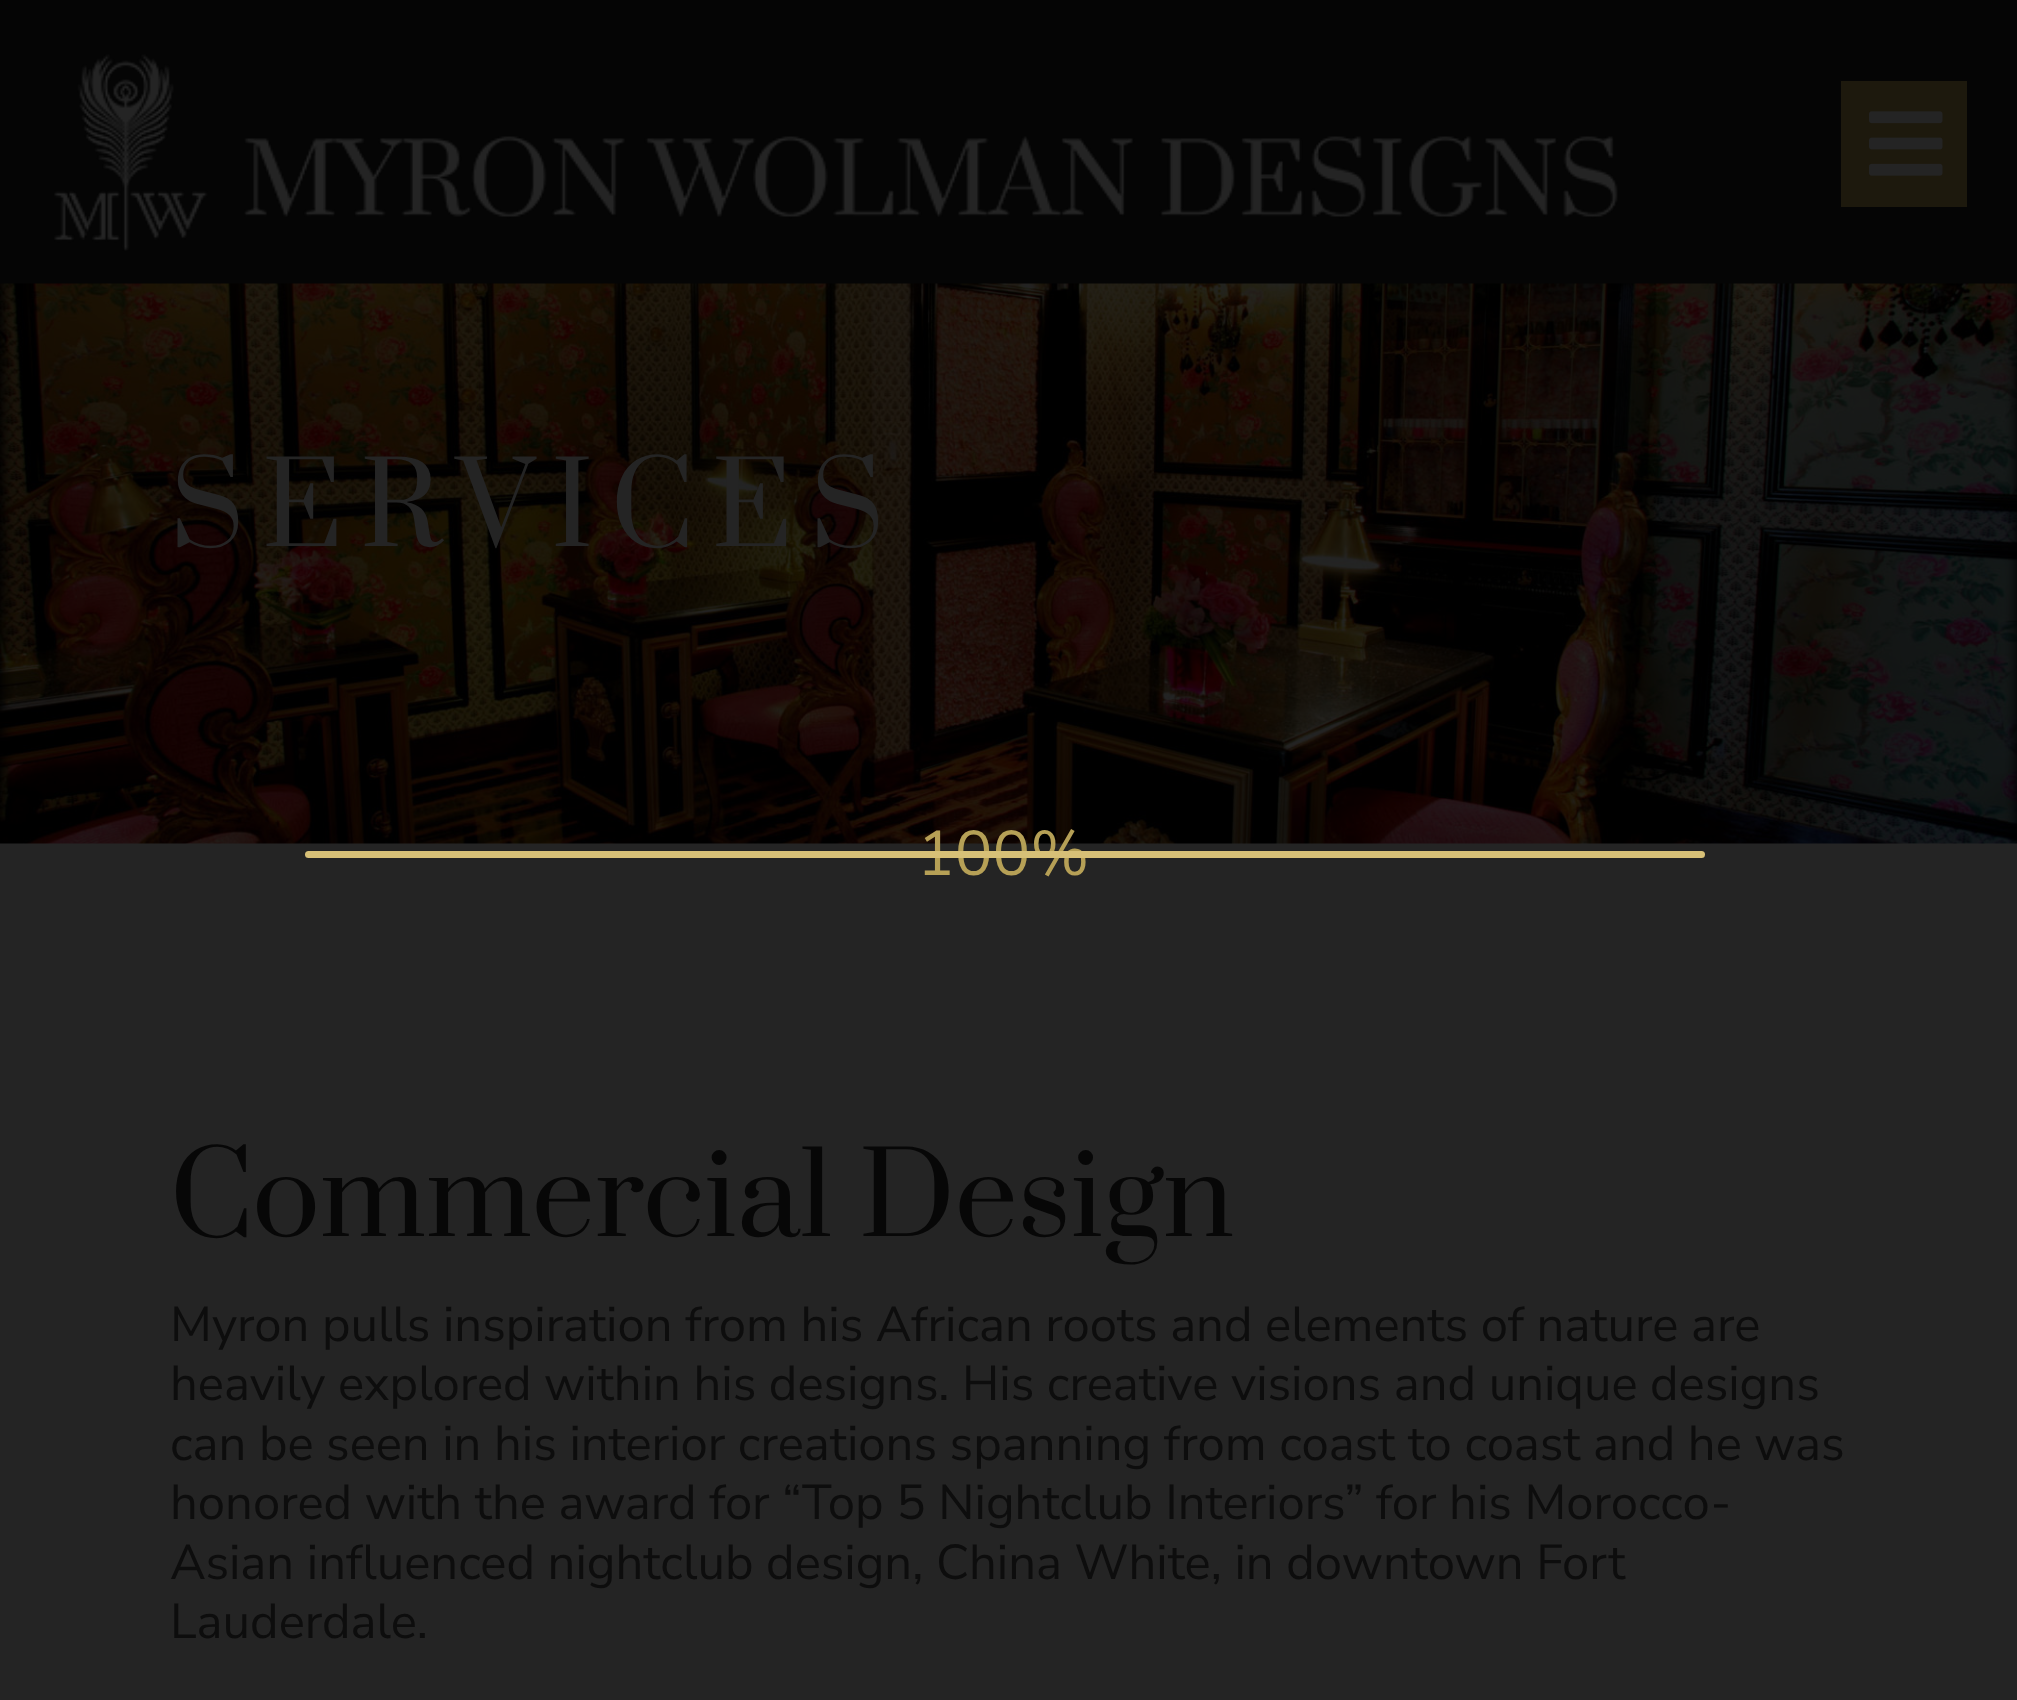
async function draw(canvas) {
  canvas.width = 2017;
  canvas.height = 1700;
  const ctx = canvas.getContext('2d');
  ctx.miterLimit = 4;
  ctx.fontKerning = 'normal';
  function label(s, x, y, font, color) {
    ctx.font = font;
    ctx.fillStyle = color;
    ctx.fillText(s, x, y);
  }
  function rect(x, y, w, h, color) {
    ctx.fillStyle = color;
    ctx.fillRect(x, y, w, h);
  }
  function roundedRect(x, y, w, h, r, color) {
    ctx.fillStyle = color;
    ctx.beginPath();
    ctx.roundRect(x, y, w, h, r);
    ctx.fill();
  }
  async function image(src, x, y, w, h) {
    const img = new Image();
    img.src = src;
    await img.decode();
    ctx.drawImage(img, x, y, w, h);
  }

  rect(0, 0, 2017, 1700, '#050505');
  await image('assets/img1.png', 54, 54, 1564, 197);
  rect(1841, 81, 126, 126, '#1d190d');
  await image('assets/img2.png', 1869, 111, 74, 65);
  rect(0, 843, 2017, 857, '#242424');
  await image('assets/img3.png', 0, 283, 2017, 561);
  ctx.letterSpacing = '17.5px';
  label('SERVICES', 170, 546, '112px Prata', '#242424');
  ctx.letterSpacing = '0px';
  label('Commercial Design', 170, 1236, '112px Prata', '#070707');
  label('Myron pulls inspiration from his African roots and elements of nature are', 170, 1341, '200 49px Nunito Sans', '#0d0d0d');
  label('heavily explored within his designs. His creative visions and unique designs', 170, 1400, '200 49px Nunito Sans', '#0d0d0d');
  label('can be seen in his interior creations spanning from coast to coast and he was', 170, 1460, '200 49px Nunito Sans', '#0d0d0d');
  label('honored with the award for “Top 5 Nightclub Interiors” for his Morocco-', 170, 1519, '200 49px Nunito Sans', '#0d0d0d');
  label('Asian influenced nightclub design, China White, in downtown Fort', 170, 1579, '200 49px Nunito Sans', '#0d0d0d');
  label('Lauderdale.', 170, 1638, '200 49px Nunito Sans', '#0d0d0d');
  label('100%', 917, 875, '200 63px Nunito Sans', '#b6a056');
  roundedRect(305, 851, 1400, 7, 3.5, '#d7c077');
}

draw(document.querySelector('canvas'));
